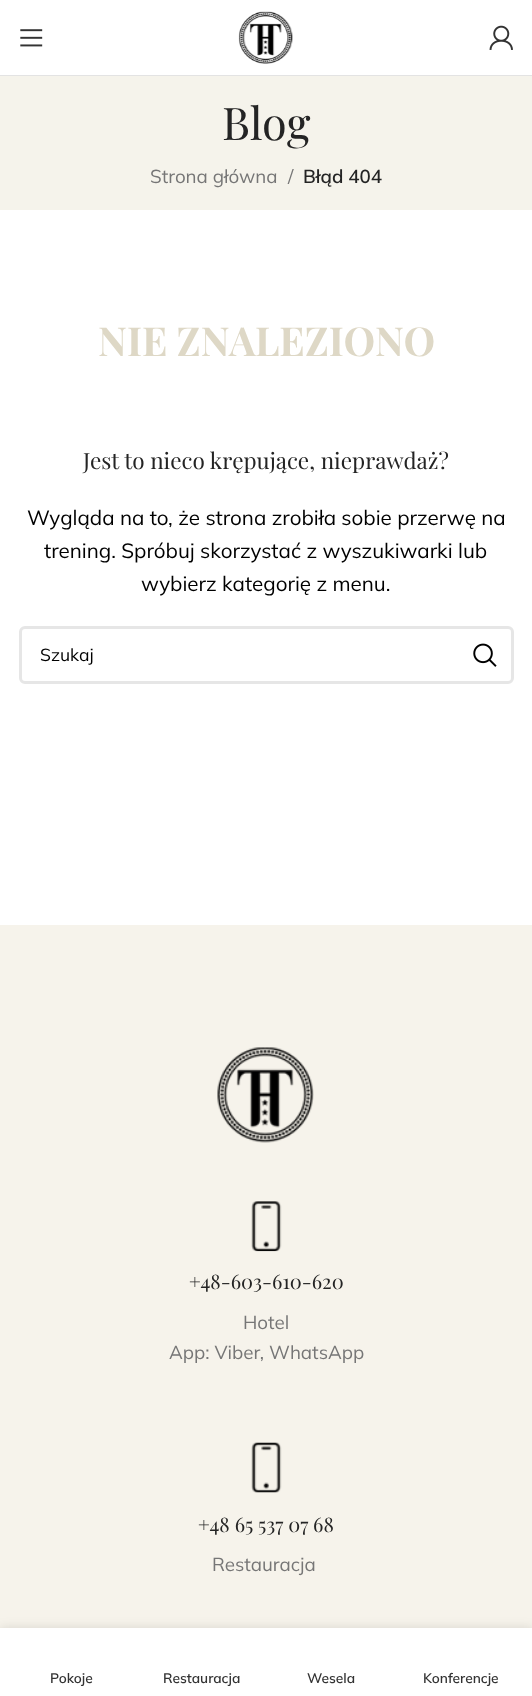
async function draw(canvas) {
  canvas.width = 532;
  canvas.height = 1696;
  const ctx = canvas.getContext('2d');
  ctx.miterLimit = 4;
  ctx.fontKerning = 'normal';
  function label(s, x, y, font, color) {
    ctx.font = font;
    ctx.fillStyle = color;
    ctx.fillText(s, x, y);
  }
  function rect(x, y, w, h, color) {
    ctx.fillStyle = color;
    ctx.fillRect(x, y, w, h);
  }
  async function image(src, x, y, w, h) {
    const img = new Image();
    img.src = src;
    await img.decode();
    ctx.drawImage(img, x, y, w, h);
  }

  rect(0, 0, 532, 1696, '#fff');
  rect(0, 75, 532, 1, '#e3e3e3');
  await image('assets/img1.png', 20, 29, 23, 18);
  await image('assets/img2.png', 238, 11, 55, 53);
  await image('assets/img3.png', 489, 25, 24, 25);
  rect(0, 76, 532, 134, '#f5f3eb');
  label('Blog', 222, 140, '45px Playfair Display', '#242424');
  label('Strona główna', 150, 183, '18.75px Mulish', '#767676');
  label('/', 288, 183, '18.75px Mulish', '#767676');
  label('Błąd 404', 303, 183, '600 18.75px Mulish', '#242424');
  label('NIE ZNALEZIONO', 98, 356, 'bold 40px Playfair Display', '#ded8c6');
  label('Jest to nieco krępujące, nieprawdaż?', 83, 469, '22.5px Playfair Display', '#242424');
  label('Wygląda na to, że strona zrobiła sobie przerwę na', 27, 525, '20.6px Mulish', '#000');
  label('trening. Spróbuj skorzystać z wyszukiwarki lub', 44, 558, '20.6px Mulish', '#000');
  label('wybierz kategorię z menu.', 141, 591, '20.6px Mulish', '#000');
  ctx.beginPath();
  ctx.roundRect(20.5, 627.5, 492, 55, 4.5);
  ctx.strokeStyle = '#e6e6e6';
  ctx.lineWidth = 3;
  ctx.stroke();
  label('Szukaj', 40, 661, '17.5px Mulish', '#000');
  await image('assets/img4.png', 473, 643, 24, 24);
  rect(0, 925, 532, 703, '#f6f3eb');
  await image('assets/img5.png', 217, 1047, 97, 96);
  await image('assets/img6.png', 251, 1201, 31, 51);
  label('+48-603-610-620', 189, 1289, '20px Playfair Display', '#242424');
  label('Hotel', 243, 1329, '18.75px Mulish', '#767676');
  label('App: Viber, WhatsApp', 169, 1359, '18.75px Mulish', '#767676');
  await image('assets/img7.png', 251, 1442, 31, 51);
  label('+48 65 537 07 68', 198, 1532, '20px Playfair Display', '#242424');
  label('Restauracja', 212, 1571, '18.75px Mulish', '#767676');
  ctx.fillStyle = '#0000001f';
  ctx.filter = 'blur(5.5px)';
  ctx.beginPath();
  ctx.rect(0, 1628, 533, 68);
  ctx.fill();
  ctx.filter = 'none';
  rect(0, 1628, 532, 68, '#fff');
  label('Pokoje', 50, 1683, '600 13.75px Mulish', '#333');
  label('Restauracja', 163, 1683, '600 13.75px Mulish', '#333');
  label('Wesela', 307, 1683, '600 13.75px Mulish', '#333');
  label('Konferencje', 423, 1683, '600 13.75px Mulish', '#333');
}

draw(document.querySelector('canvas'));
